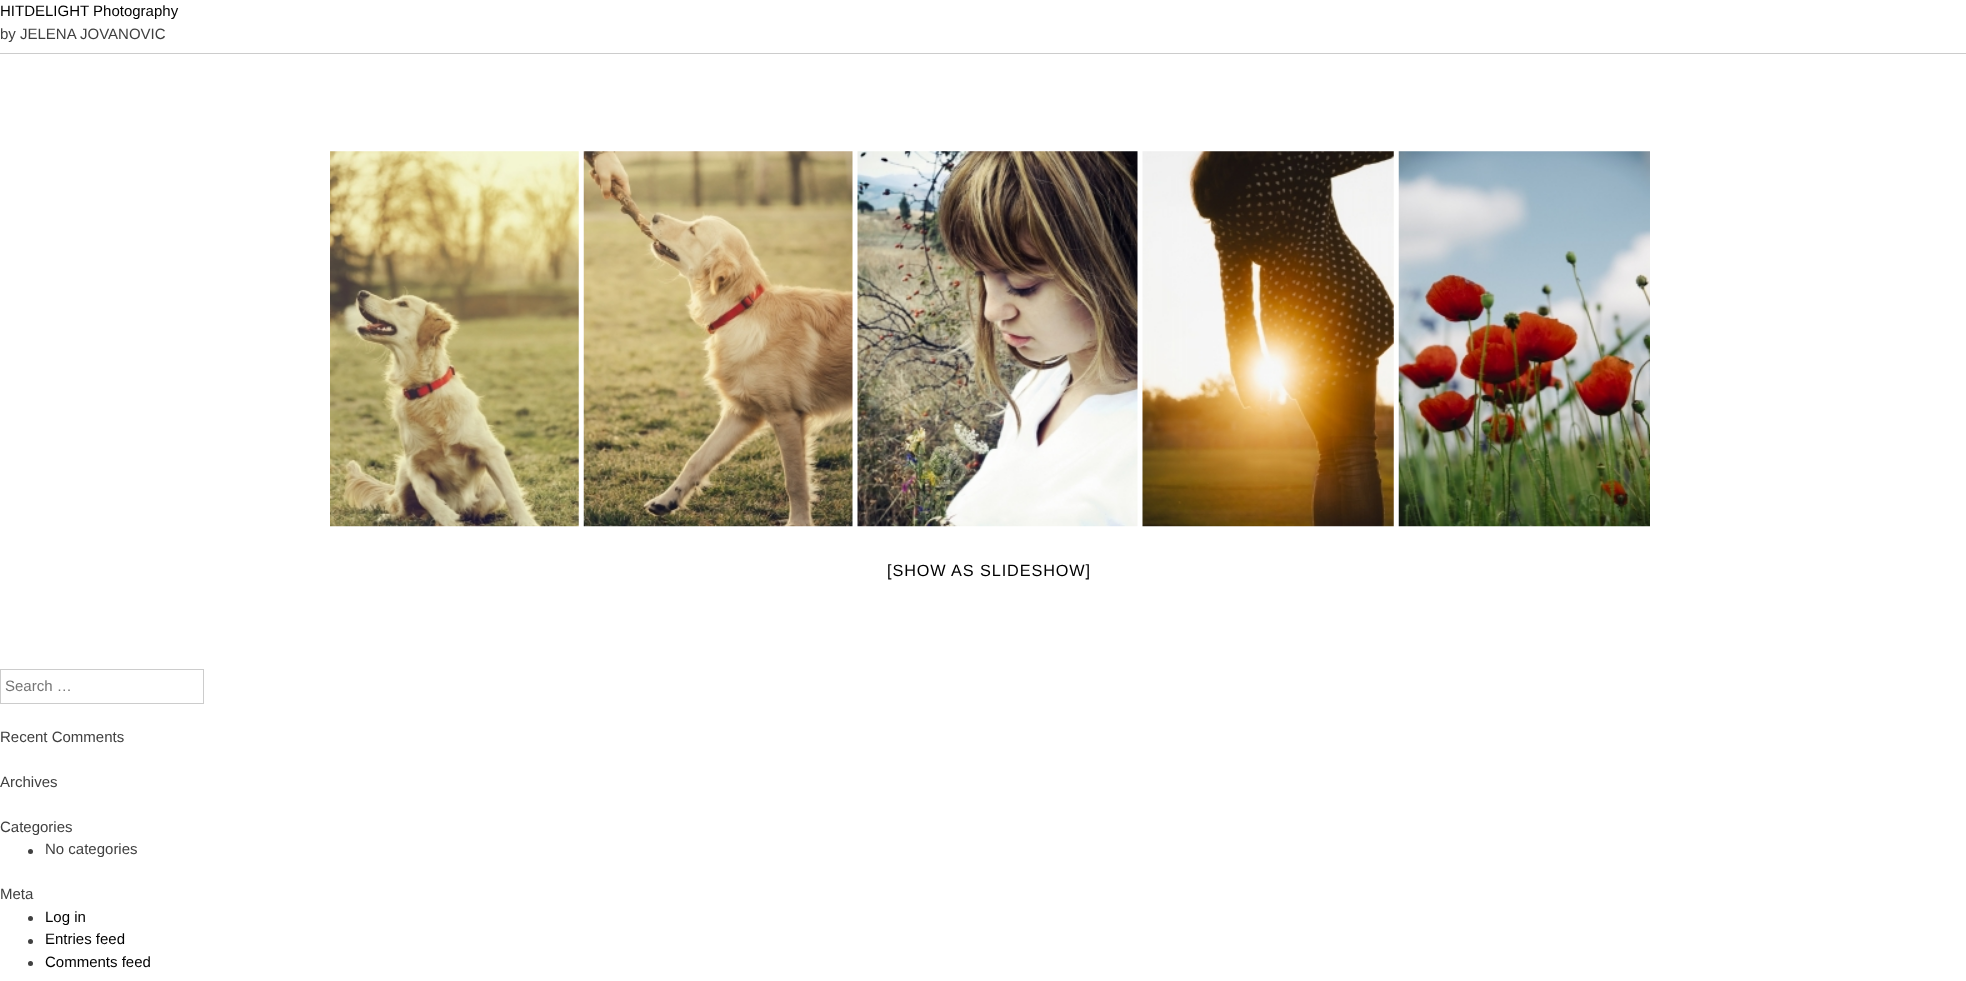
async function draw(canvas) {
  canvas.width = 1966;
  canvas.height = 981;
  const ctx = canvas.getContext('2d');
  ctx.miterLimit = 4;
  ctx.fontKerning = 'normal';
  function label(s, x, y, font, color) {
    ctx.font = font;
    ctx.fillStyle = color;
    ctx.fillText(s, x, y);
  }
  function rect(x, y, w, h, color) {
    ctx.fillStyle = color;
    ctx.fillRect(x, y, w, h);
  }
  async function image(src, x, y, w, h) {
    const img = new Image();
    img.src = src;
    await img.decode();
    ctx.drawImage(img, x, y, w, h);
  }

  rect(0, 0, 1966, 981, '#fff');
  label('HITDELIGHT Photography', 0, 16, '15px Liberation Sans', '#000');
  label('by JELENA JOVANOVIC', 0, 39, '15px Liberation Sans', '#404040');
  rect(0, 53, 1966, 1, '#ccc');
  await image('assets/img1.png', 330, 151, 249, 376);
  await image('assets/img2.png', 583, 151, 270, 376);
  await image('assets/img3.png', 857, 151, 281, 376);
  await image('assets/img4.png', 1142, 151, 252, 376);
  await image('assets/img5.png', 1398, 151, 252, 376);
  ctx.letterSpacing = '0.9px';
  label('[SHOW AS SLIDESHOW]', 887, 576, '16.25px Liberation Sans', '#000');
  ctx.strokeStyle = '#ccc';
  ctx.strokeRect(0.5, 669.5, 203, 34);
  ctx.letterSpacing = '0px';
  label('Search …', 5, 691, '15px Liberation Sans', '#757575');
  label('Recent Comments', 0, 742, '15px Liberation Sans', '#404040');
  label('Archives', 0, 787, '15px Liberation Sans', '#404040');
  label('Categories', 0, 832, '15px Liberation Sans', '#404040');
  ctx.beginPath();
  ctx.arc(30.5, 851.5, 2.5, 0, 2 * Math.PI);
  ctx.fill();
  label('No categories', 45, 854, '15px Liberation Sans', '#404040');
  label('Meta', 0, 899, '15px Liberation Sans', '#404040');
  ctx.beginPath();
  ctx.arc(30.5, 918.5, 2.5, 0, 2 * Math.PI);
  ctx.fill();
  label('Log in', 45, 922, '15px Liberation Sans', '#000');
  ctx.fillStyle = '#404040';
  ctx.beginPath();
  ctx.arc(30.5, 941.5, 2.5, 0, 2 * Math.PI);
  ctx.fill();
  label('Entries feed', 45, 944, '15px Liberation Sans', '#000');
  ctx.fillStyle = '#404040';
  ctx.beginPath();
  ctx.arc(30.5, 963.5, 2.5, 0, 2 * Math.PI);
  ctx.fill();
  label('Comments feed', 45, 967, '15px Liberation Sans', '#000');
}

draw(document.querySelector('canvas'));
